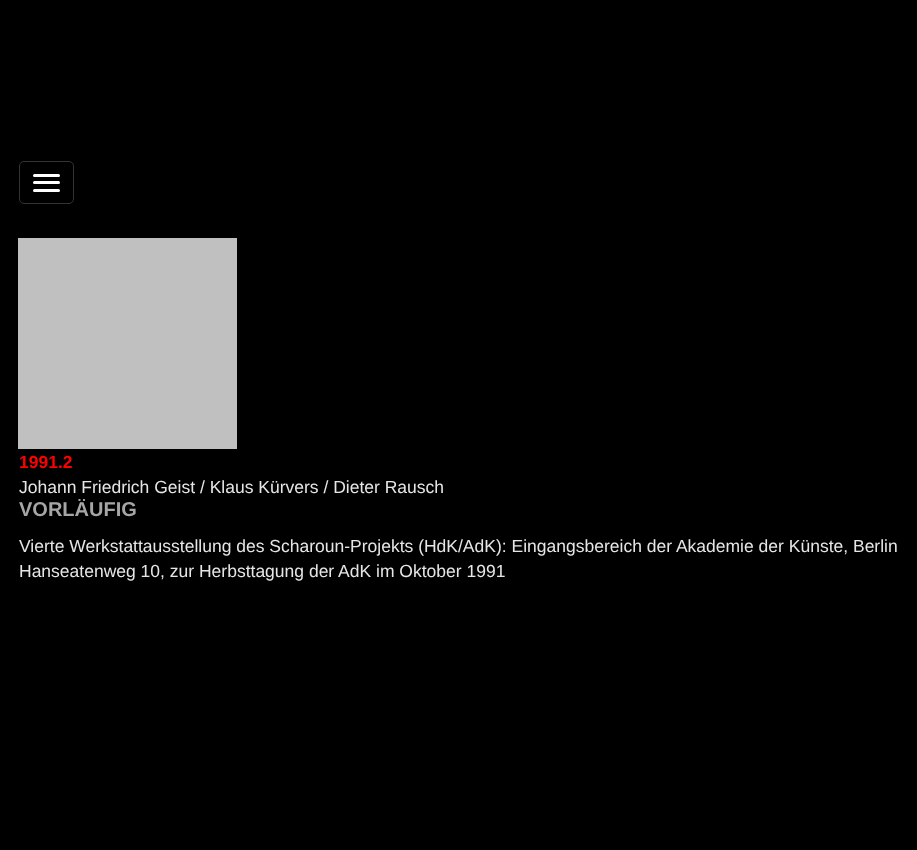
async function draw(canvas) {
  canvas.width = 917;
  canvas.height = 850;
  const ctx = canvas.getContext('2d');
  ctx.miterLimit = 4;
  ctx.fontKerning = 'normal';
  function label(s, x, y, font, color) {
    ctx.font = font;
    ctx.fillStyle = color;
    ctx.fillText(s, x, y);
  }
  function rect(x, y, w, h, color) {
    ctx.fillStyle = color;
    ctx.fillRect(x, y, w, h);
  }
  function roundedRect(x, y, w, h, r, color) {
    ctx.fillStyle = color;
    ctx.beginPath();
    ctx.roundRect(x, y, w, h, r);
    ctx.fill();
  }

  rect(0, 0, 917, 850, '#000');
  ctx.beginPath();
  ctx.roundRect(19.5, 161.5, 54, 42, 4.5);
  ctx.strokeStyle = '#333';
  ctx.stroke();
  roundedRect(33, 174, 27, 3, 1.5, '#fff');
  roundedRect(33, 181, 27, 3, 1.5, '#fff');
  roundedRect(33, 189, 27, 3, 1.5, '#fff');
  rect(18, 238, 219, 211, '#c0c0c0');
  label('1991.2', 19, 468, 'bold 17.5px Liberation Sans', '#f00');
  label('Johann Friedrich Geist / Klaus Kürvers / Dieter Rausch', 19, 493, '17.5px Liberation Sans', '#e6e6e6');
  label('VORLÄUFIG', 19, 516, 'bold 20px Liberation Sans', '#a6a6a6');
  label('Vierte Werkstattausstellung des Scharoun-Projekts (HdK/AdK): Eingangsbereich der Akademie der Künste, Berlin', 19, 552, '17.5px Liberation Sans', '#e6e6e6');
  label('Hanseatenweg 10, zur Herbsttagung der AdK im Oktober 1991', 19, 577, '17.5px Liberation Sans', '#e6e6e6');
}

draw(document.querySelector('canvas'));
